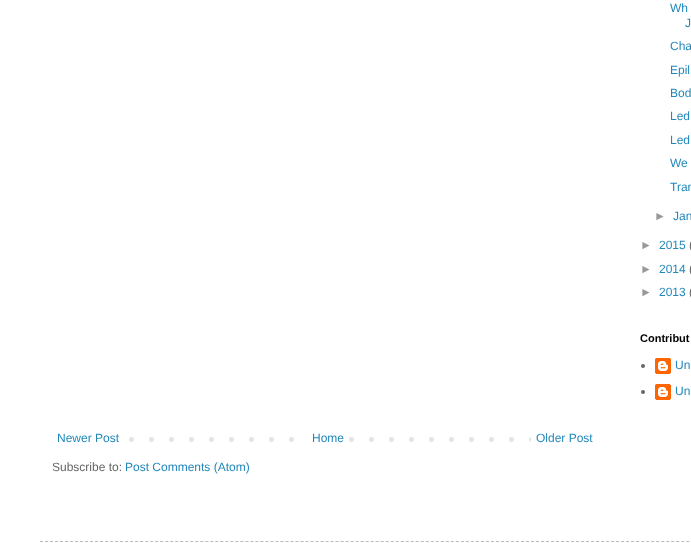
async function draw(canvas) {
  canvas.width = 691;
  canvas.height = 543;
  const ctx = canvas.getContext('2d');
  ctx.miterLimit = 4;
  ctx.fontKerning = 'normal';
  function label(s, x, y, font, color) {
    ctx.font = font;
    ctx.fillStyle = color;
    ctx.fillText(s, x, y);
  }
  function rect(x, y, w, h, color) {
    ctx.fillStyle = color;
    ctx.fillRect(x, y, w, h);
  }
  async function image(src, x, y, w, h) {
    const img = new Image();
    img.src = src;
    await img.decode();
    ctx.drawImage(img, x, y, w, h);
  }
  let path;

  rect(0, 0, 691, 543, '#fff');
  label('Wh', 670, 12, '12px Liberation Sans', '#28b');
  label('J', 685, 27, '12px Liberation Sans', '#28b');
  label('Cha', 670, 50, '12px Liberation Sans', '#28b');
  label('Epil', 670, 74, '12px Liberation Sans', '#28b');
  label('Bod', 670, 97, '12px Liberation Sans', '#28b');
  label('Led', 670, 120, '12px Liberation Sans', '#28b');
  label('Led', 670, 144, '12px Liberation Sans', '#28b');
  label('We', 670, 167, '12px Liberation Sans', '#28b');
  label('Tran', 670, 191, '12px Liberation Sans', '#28b');
  label('►', 654, 220, '12px Liberation Sans', '#999');
  label('Jan', 673, 220, '12px Liberation Sans', '#28b');
  label('►', 640, 249, '12px Liberation Sans', '#999');
  label('2015', 659, 249, '12px Liberation Sans', '#28b');
  label('(', 689, 249, '12px Liberation Sans', '#666');
  label('►', 640, 273, '12px Liberation Sans', '#999');
  label('2014', 659, 273, '12px Liberation Sans', '#28b');
  label('(', 689, 273, '12px Liberation Sans', '#666');
  label('►', 640, 296, '12px Liberation Sans', '#999');
  label('2013', 659, 296, '12px Liberation Sans', '#28b');
  label('(', 689, 296, '12px Liberation Sans', '#666');
  label('Contribut', 640, 342, 'bold 11px Liberation Sans', '#000');
  ctx.fillStyle = '#666';
  ctx.beginPath();
  ctx.arc(643, 366, 2, 0, 2 * Math.PI);
  ctx.fill();
  await image('assets/img1.png', 655, 358, 16, 16);
  label('Un', 675, 369, '12px Liberation Sans', '#28b');
  ctx.fillStyle = '#666';
  ctx.beginPath();
  ctx.arc(643, 392, 2, 0, 2 * Math.PI);
  ctx.fill();
  await image('assets/img1.png', 655, 384, 16, 16);
  label('Un', 675, 395, '12px Liberation Sans', '#28b');
  await image('assets/img2.png', 129, 437, 402, 5);
  label('Newer Post', 57, 442, '12px Liberation Sans', '#28b');
  rect(309, 437, 26, 5, '#fff');
  label('Home', 312, 442, '12px Liberation Sans', '#28b');
  label('Older Post', 536, 442, '12px Liberation Sans', '#28b');
  label('Subscribe to:', 52, 471, '12px Liberation Sans', '#666');
  label('Post Comments (Atom)', 125, 471, '12px Liberation Sans', '#28b');
  path = new Path2D('M40 541.5H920');
  ctx.strokeStyle = '#bbb';
  ctx.setLineDash([3, 2.01]);
  ctx.stroke(path);
}

draw(document.querySelector('canvas'));
